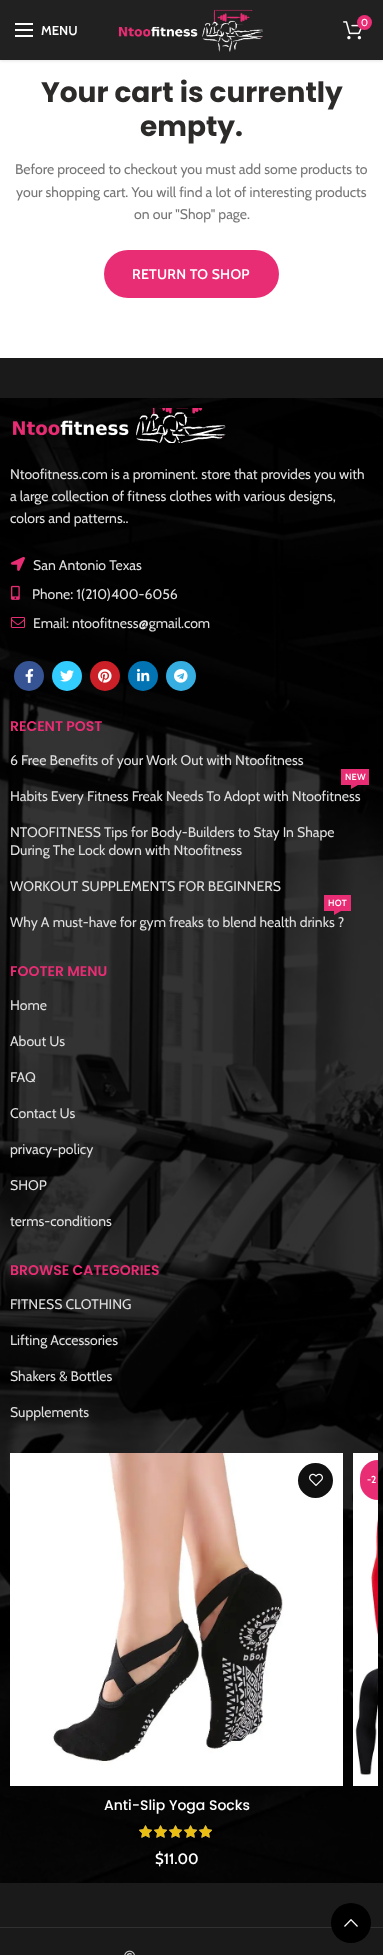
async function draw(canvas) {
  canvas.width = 383;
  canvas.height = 1955;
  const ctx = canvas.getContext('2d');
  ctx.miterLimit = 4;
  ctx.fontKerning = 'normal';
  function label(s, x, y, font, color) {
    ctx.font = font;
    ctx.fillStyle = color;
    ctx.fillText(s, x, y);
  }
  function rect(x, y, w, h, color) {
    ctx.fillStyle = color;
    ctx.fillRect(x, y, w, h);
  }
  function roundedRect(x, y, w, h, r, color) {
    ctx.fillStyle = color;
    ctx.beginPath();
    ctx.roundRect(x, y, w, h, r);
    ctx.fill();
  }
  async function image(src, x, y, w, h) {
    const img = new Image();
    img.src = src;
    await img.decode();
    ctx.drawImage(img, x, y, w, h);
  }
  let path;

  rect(0, 0, 383, 1955, '#fff');
  ctx.fillStyle = '#0000001a';
  ctx.filter = 'blur(1.5px)';
  ctx.beginPath();
  ctx.rect(0, 1, 383, 60);
  ctx.fill();
  ctx.filter = 'none';
  rect(0, 0, 383, 60, '#212121');
  await image('assets/img1.png', 118, 9, 145, 43);
  await image('assets/img2.png', 343, 21, 19, 19);
  ctx.fillStyle = '#e92d74';
  ctx.beginPath();
  ctx.arc(364.5, 22.5, 7.5, 0, 2 * Math.PI);
  ctx.fill();
  label('0', 361, 26, '10px Cabin', '#fff');
  rect(15, 29, 18, 2, '#fff');
  rect(15, 23, 18, 2, '#fff');
  rect(15, 35, 18, 2, '#fff');
  label('MENU', 41, 35, '600 13px Cabin', '#fff');
  label('Your cart is currently', 41, 102, 'bold 28px Poppins', '#2d2a2a');
  label('empty.', 140, 136, 'bold 28px Poppins', '#2d2a2a');
  label('Before proceed to checkout you must add some products to', 15, 174, '14px Cabin', '#777');
  label('your shopping cart. You will find a lot of interesting products', 16, 197, '14px Cabin', '#777');
  label('on our "Shop" page.', 134, 219, '14px Cabin', '#777');
  roundedRect(104, 250, 175, 48, 24, '#e92d74');
  ctx.letterSpacing = '0.25px';
  label('RETURN TO SHOP', 132, 279, '600 14px Cabin', '#fff');
  rect(0, 358, 383, 1597, '#1a1a1a');
  await image('assets/img3.png', 0, 398, 383, 1485);
  await image('assets/img4.png', 13, 408, 213, 35);
  ctx.letterSpacing = '0px';
  label('Ntoofitness.com is a prominent. store that provides you with', 10, 479, '14px Cabin', '#dfdfdf');
  label('a large collection of fitness clothes with various designs,', 10, 501, '14px Cabin', '#dfdfdf');
  label('colors and patterns..', 10, 523, '14px Cabin', '#dfdfdf');
  await image('assets/img5.png', 11, 556, 14, 15);
  label('San Antonio Texas', 33, 570, '14px Cabin', '#dfdfdf');
  await image('assets/img6.png', 11, 585, 9, 15);
  label('Phone: 1(210)400-6056', 32, 599, '14px Cabin', '#dfdfdf');
  await image('assets/img7.png', 11, 617, 14, 11);
  label('Email: ntoofitness@gmail.com', 33, 628, '14px Cabin', '#dfdfdf');
  ctx.fillStyle = '#365493';
  ctx.beginPath();
  ctx.arc(29, 676, 15, 0, 2 * Math.PI);
  ctx.fill();
  await image('assets/img8.png', 25, 668, 9, 15);
  ctx.fillStyle = '#3cf';
  ctx.beginPath();
  ctx.arc(67, 676, 15, 0, 2 * Math.PI);
  ctx.fill();
  await image('assets/img9.png', 60, 670, 14, 12);
  ctx.fillStyle = '#cb2027';
  ctx.beginPath();
  ctx.arc(105, 676, 15, 0, 2 * Math.PI);
  ctx.fill();
  await image('assets/img10.png', 98, 669, 14, 14);
  ctx.fillStyle = '#0274b3';
  ctx.beginPath();
  ctx.arc(143, 676, 15, 0, 2 * Math.PI);
  ctx.fill();
  await image('assets/img11.png', 137, 668, 13, 14);
  ctx.fillStyle = '#37aee2';
  ctx.beginPath();
  ctx.arc(181, 676, 15, 0, 2 * Math.PI);
  ctx.fill();
  await image('assets/img12.png', 174, 669, 14, 14);
  label('RECENT POST', 10, 731, '600 14px Poppins', '#e92d74');
  label('6 Free Benefits of your Work Out with Ntoofitness', 10, 765, '14px Cabin', '#dfdfdf');
  rect(341, 769, 28, 16, '#e92d74');
  ctx.letterSpacing = '0.25px';
  label('NEW', 345, 780, '600 9px Cabin', '#fff');
  ctx.fillStyle = '#e92d74';
  path = new Path2D('M351 785H358L351 789Z');
  ctx.fill(path);
  ctx.letterSpacing = '0px';
  label('Habits Every Fitness Freak Needs To Adopt with Ntoofitness', 10, 801, '14px Cabin', '#dfdfdf');
  label('NTOOFITNESS Tips for Body-Builders to Stay In Shape', 10, 837, '14px Cabin', '#dfdfdf');
  label('During The Lock down with Ntoofitness', 10, 855, '14px Cabin', '#dfdfdf');
  label('WORKOUT SUPPLEMENTS FOR BEGINNERS', 10, 891, '14px Cabin', '#dfdfdf');
  rect(324, 895, 27, 16, '#e92d74');
  ctx.letterSpacing = '0.25px';
  label('HOT', 328, 906, '600 9px Cabin', '#fff');
  ctx.fillStyle = '#e92d74';
  path = new Path2D('M334 911H341L334 915Z');
  ctx.fill(path);
  ctx.letterSpacing = '0px';
  label('Why A must-have for gym freaks to blend health drinks ?', 10, 927, '14px Cabin', '#dfdfdf');
  label('FOOTER MENU', 10, 976, '600 14px Poppins', '#e92d74');
  label('Home', 10, 1010, '14px Cabin', '#dfdfdf');
  label('About Us', 10, 1046, '14px Cabin', '#dfdfdf');
  label('FAQ', 10, 1082, '14px Cabin', '#dfdfdf');
  label('Contact Us', 10, 1118, '14px Cabin', '#dfdfdf');
  label('privacy-policy', 10, 1154, '14px Cabin', '#dfdfdf');
  label('SHOP', 10, 1190, '14px Cabin', '#dfdfdf');
  label('terms-conditions', 10, 1226, '14px Cabin', '#dfdfdf');
  label('BROWSE CATEGORIES', 10, 1275, '600 14px Poppins', '#e92d74');
  label('FITNESS CLOTHING', 10, 1309, '14px Cabin', '#dfdfdf');
  label('Lifting Accessories', 10, 1345, '14px Cabin', '#dfdfdf');
  label('Shakers & Bottles', 10, 1381, '14px Cabin', '#dfdfdf');
  label('Supplements', 10, 1417, '14px Cabin', '#dfdfdf');
  await image('assets/img13.png', 353, 1453, 25, 333);
  ctx.fillStyle = '#e92d74';
  ctx.beginPath();
  ctx.roundRect(360, 1460, 18, 40, [20, 0, 0, 20]);
  ctx.fill();
  label('-2', 367, 1483, '600 10px Cabin', '#fff');
  await image('assets/img14.png', 10, 1453, 333, 333);
  ctx.fillStyle = '#101010';
  ctx.beginPath();
  ctx.arc(315.5, 1480.5, 17.5, 0, 2 * Math.PI);
  ctx.fill();
  await image('assets/img15.png', 309, 1473, 14, 13);
  label('Anti-Slip Yoga Socks', 104, 1810, '500 14px Poppins', '#fff');
  await image('assets/img16.png', 139, 1825, 73, 13);
  await image('assets/img17.png', 139, 1825, 73, 13);
  label('$11.00', 155, 1864, '600 15px Cabin', '#fff');
  rect(0, 1927, 383, 1, '#313131');
  await image('assets/img18.png', 124, 1950, 11, 5);
  ctx.fillStyle = '#000';
  ctx.beginPath();
  ctx.arc(351, 1923, 20, 0, 2 * Math.PI);
  ctx.fill();
  await image('assets/img19.png', 344, 1919, 14, 8);
}

draw(document.querySelector('canvas'));
